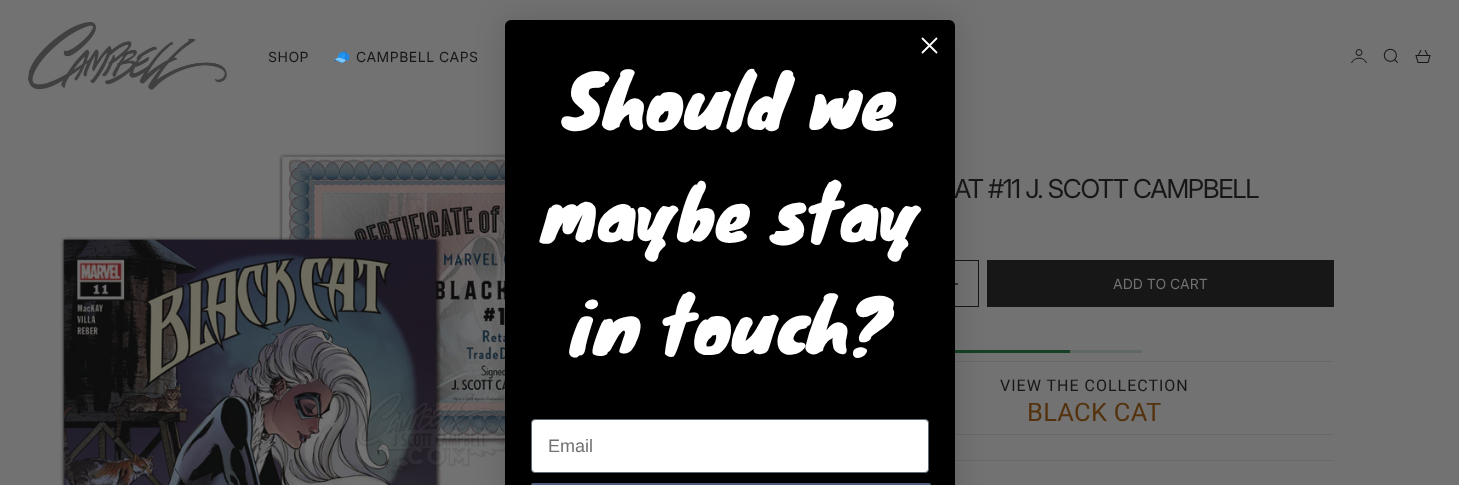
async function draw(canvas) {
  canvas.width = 1459;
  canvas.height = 485;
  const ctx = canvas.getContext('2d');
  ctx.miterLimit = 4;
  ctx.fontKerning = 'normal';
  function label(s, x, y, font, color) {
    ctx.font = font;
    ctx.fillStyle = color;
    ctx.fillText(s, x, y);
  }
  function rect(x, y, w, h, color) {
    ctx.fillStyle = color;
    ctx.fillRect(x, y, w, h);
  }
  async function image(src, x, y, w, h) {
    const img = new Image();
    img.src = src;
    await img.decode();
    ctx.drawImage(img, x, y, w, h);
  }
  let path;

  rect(0, 0, 1459, 485, '#727272');
  await image('assets/img1.png', 28, 22, 199, 68);
  ctx.letterSpacing = '0.5px';
  label('SHOP', 268, 62, '14px "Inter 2"', '#171717');
  label('🧢', 333, 62, '14px Noto Color Emoji', '#171717');
  label('CAMPBELL CAPS', 356, 62, '14px "Inter 2"', '#171717');
  path = new Path2D('M1366.5 63C1364 56.5 1354 56.5 1351.5 63');
  ctx.strokeStyle = '#171717';
  ctx.stroke(path);
  ctx.beginPath();
  ctx.arc(1359, 52.5, 3, 0, 2 * Math.PI);
  ctx.stroke();
  await image('assets/img2.png', 1383, 48, 15, 15);
  await image('assets/img3.png', 1415, 49, 16, 14);
  await image('assets/img4.png', 60, 153, 445, 332);
  ctx.strokeRect(854.5, 260.5, 124, 46);
  rect(950, 283, 8, 2, '#2e2e2e');
  rect(987, 260, 347, 47, '#171717');
  rect(955, 350, 115, 3, '#154026');
  rect(955, 361, 379, 1, '#686868');
  rect(955, 434, 379, 1, '#686868');
  rect(955, 460, 379, 1, '#696969');
  ctx.fillStyle = '#00000026';
  ctx.filter = 'blur(15px)';
  ctx.beginPath();
  ctx.roundRect(505, 20, 450, 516, 6);
  ctx.fill();
  ctx.filter = 'none';
  ctx.letterSpacing = '-1.3px';
  label('AT #11 J. SCOTT CAMPBELL', 954, 198, '26.1px Inter', '#171717');
  ctx.fillStyle = '#000';
  ctx.beginPath();
  ctx.roundRect(505, 20, 450, 465, [6, 6, 0, 0]);
  ctx.fill();
  path = new Path2D('M922.5 38.5L936.5 52.5M922.5 52.5L936.5 38.5Z');
  ctx.strokeStyle = '#fff';
  ctx.lineWidth = 1.8;
  ctx.lineCap = 'round';
  ctx.lineJoin = 'round';
  ctx.stroke(path);
  ctx.letterSpacing = '0px';
  label('Should we', 563, 127, '72px Knewave', '#fff');
  label('maybe stay', 541, 239, '72px Knewave', '#fff');
  label('in touch?', 569, 351, '72px Knewave', '#fff');
  ctx.beginPath();
  ctx.roundRect(531.5, 419.5, 397, 53, 3.5);
  ctx.fill();
  ctx.strokeStyle = '#606a72';
  ctx.lineWidth = 1;
  ctx.lineJoin = 'miter';
  ctx.stroke();
  label('Email', 548, 452, '18px Liberation Sans', '#727272');
  ctx.fillStyle = '#505a7c';
  ctx.beginPath();
  ctx.roundRect(531, 483, 400, 2, [6, 6, 0, 0]);
  ctx.fill();
  label('ADD TO CART', 1113, 289, '14px "Inter 2"', '#727272');
  rect(1070, 350, 72, 3, '#5f6863');
  ctx.letterSpacing = '1px';
  label('VIEW THE COLLECTION', 1000, 391, '16px Roboto', '#171717');
  ctx.letterSpacing = '0.25px';
  label('BLACK CAT', 1027, 421, '25.5px Roboto', '#54320e');
}

draw(document.querySelector('canvas'));
